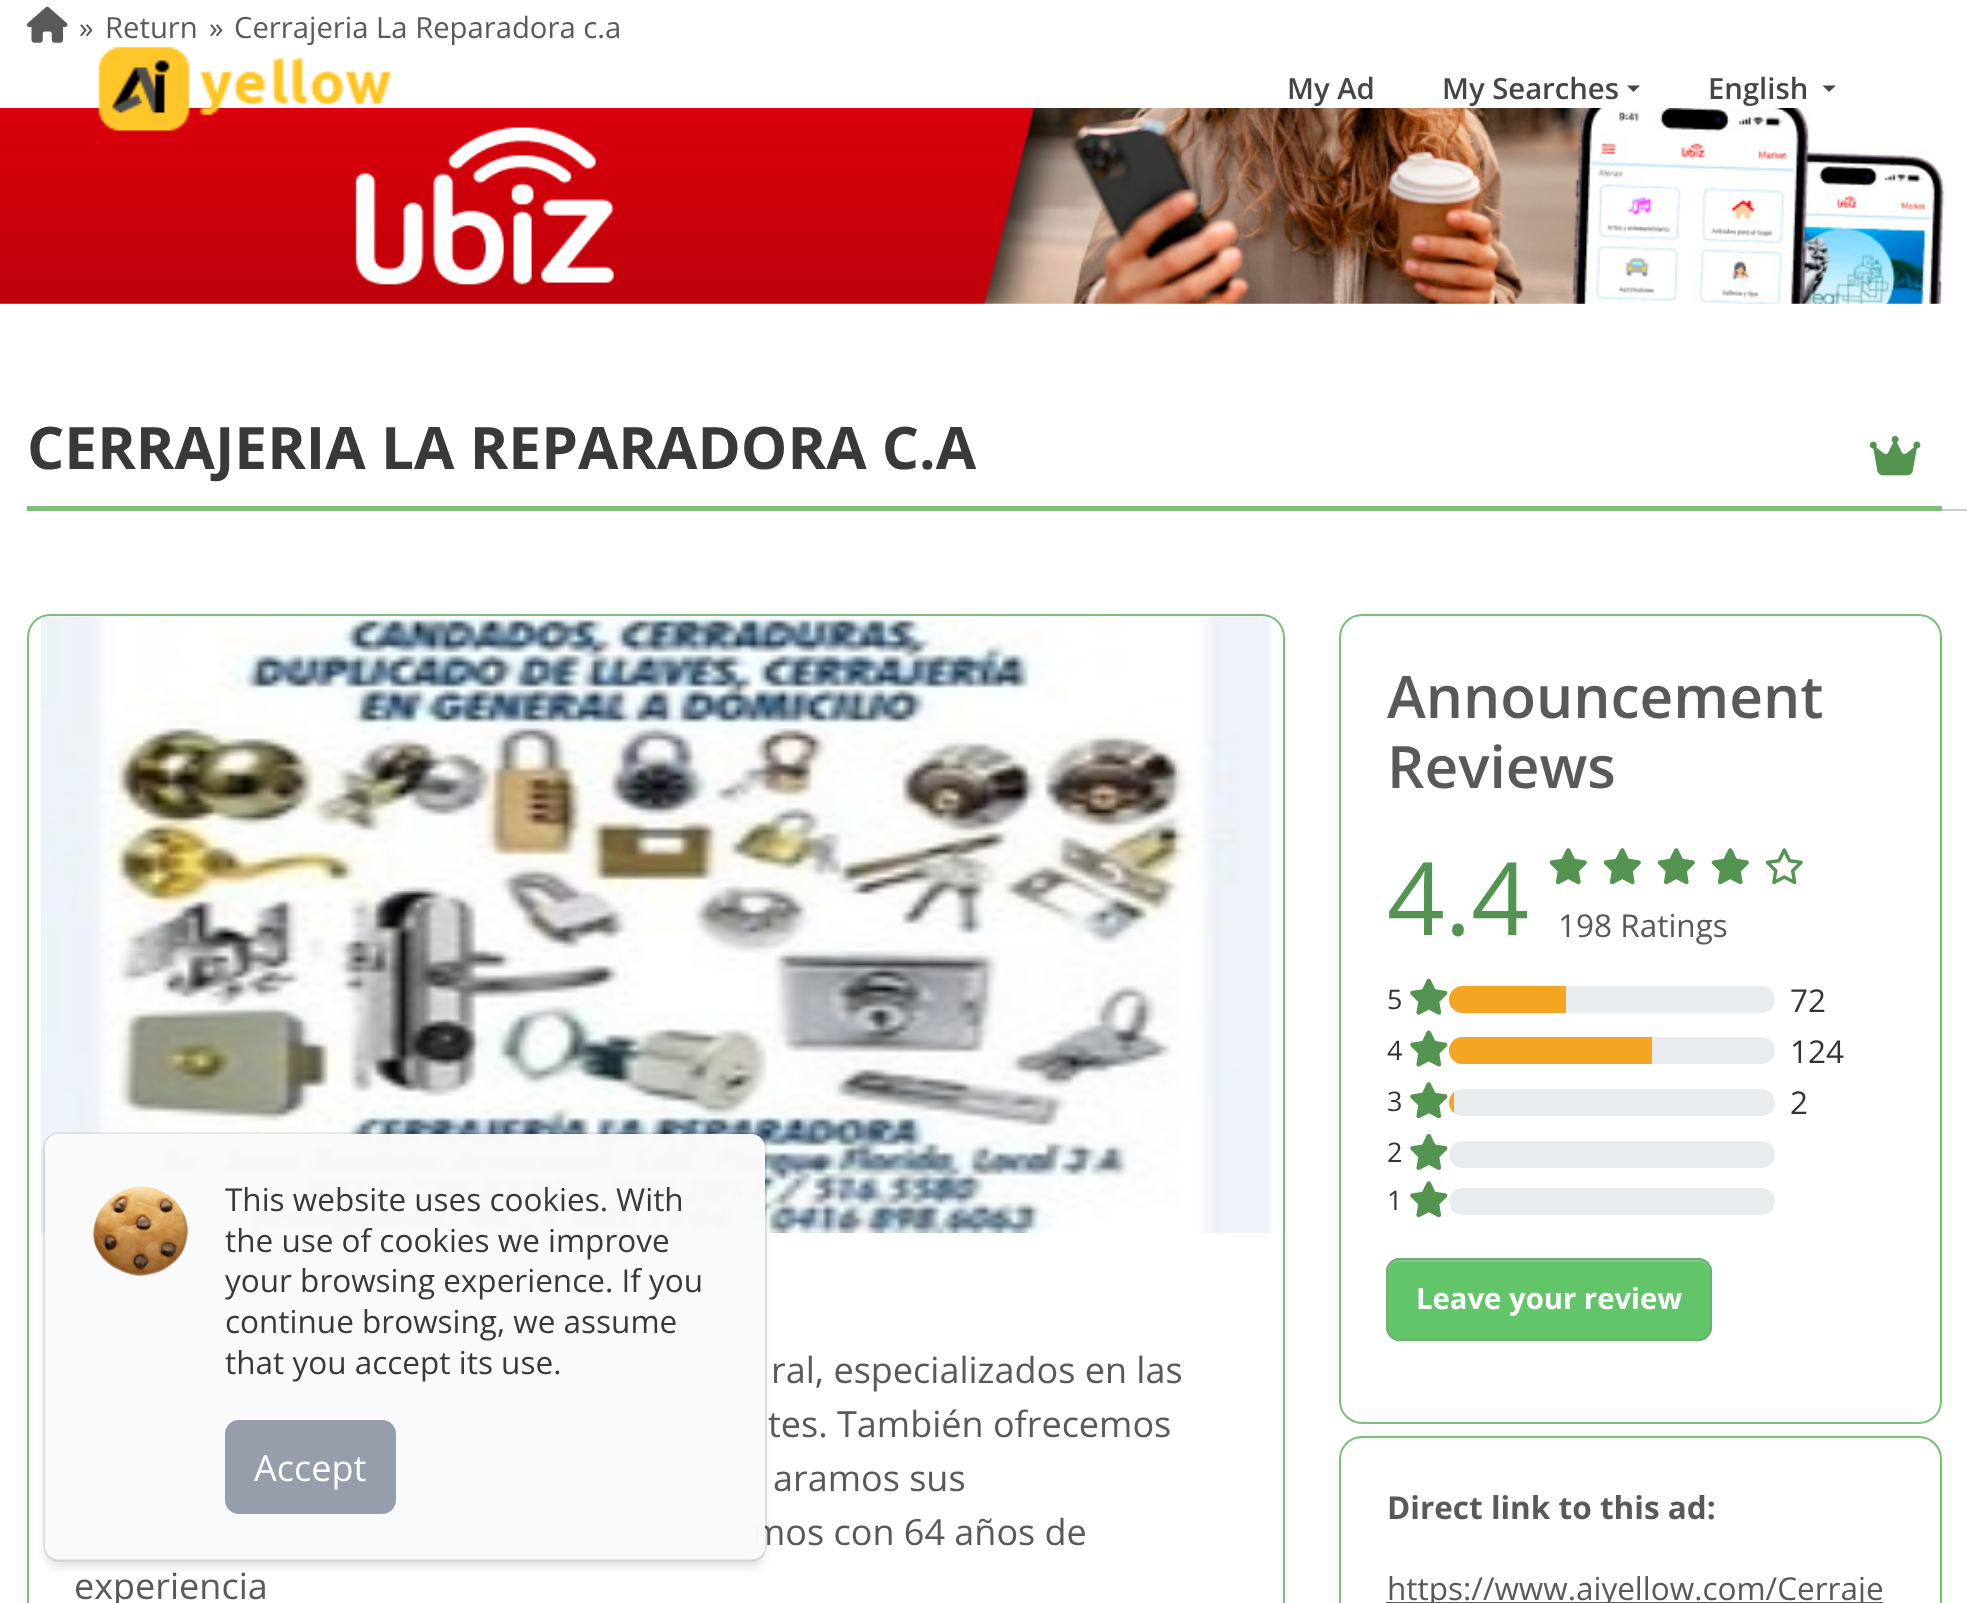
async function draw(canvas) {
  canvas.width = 1967;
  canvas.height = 1603;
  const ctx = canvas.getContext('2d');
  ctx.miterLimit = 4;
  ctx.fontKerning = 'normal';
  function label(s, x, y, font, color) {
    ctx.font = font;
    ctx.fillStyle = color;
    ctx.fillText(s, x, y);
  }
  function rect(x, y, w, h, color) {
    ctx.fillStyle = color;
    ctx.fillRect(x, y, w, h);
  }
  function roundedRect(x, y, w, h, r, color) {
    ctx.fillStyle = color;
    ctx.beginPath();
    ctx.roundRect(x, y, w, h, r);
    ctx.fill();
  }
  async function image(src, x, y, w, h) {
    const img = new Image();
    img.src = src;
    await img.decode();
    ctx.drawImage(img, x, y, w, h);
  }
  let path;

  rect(0, 0, 1967, 1603, '#fff');
  await image('assets/img1.png', 27, 6, 41, 37);
  label('»', 79, 38, '29.25px Open Sans', '#595959');
  label('Return', 105, 38, '29.25px Open Sans', '#595959');
  label('»', 209, 38, '29.25px Open Sans', '#595959');
  label('Cerrajeria La Reparadora c.a', 234, 38, '29.25px Open Sans', '#595959');
  await image('assets/img2.png', 0, 108, 1945, 196);
  label('CERRAJERIA LA REPARADORA C.A', 27, 469, 'bold 58.6px Open Sans', '#393939');
  await image('assets/img3.png', 1869, 436, 52, 40);
  rect(27, 506, 1915, 5, '#7ac178');
  rect(1942, 509, 25, 2, '#ccc');
  ctx.beginPath();
  ctx.roundRect(28, 615, 1256, 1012, 22);
  ctx.strokeStyle = '#7ac178';
  ctx.lineWidth = 2;
  ctx.stroke();
  await image('assets/img4.png', 41, 617, 1230, 616);
  label('ral, especializados en las', 771, 1383, '36px Open Sans', '#595959');
  label('tes. También ofrecemos', 768, 1437, '36px Open Sans', '#595959');
  label('aramos sus', 773, 1491, '36px Open Sans', '#595959');
  label('mos con 64 años de', 752, 1545, '36px Open Sans', '#595959');
  label('experiencia', 74, 1599, '36px Open Sans', '#595959');
  ctx.beginPath();
  ctx.roundRect(1340, 615, 601, 808, 22);
  ctx.stroke();
  label('Announcement', 1387, 718, '600 58.6px Open Sans', '#595959');
  label('Reviews', 1387, 788, '600 58.6px Open Sans', '#595959');
  label('4.4', 1387, 935, '101px Open Sans', '#529450');
  await image('assets/img5.png', 1549, 848, 38, 37);
  await image('assets/img5.png', 1603, 848, 38, 37);
  await image('assets/img5.png', 1657, 848, 38, 37);
  await image('assets/img5.png', 1711, 848, 38, 37);
  await image('assets/img6.png', 1765, 848, 38, 37);
  label('198 Ratings', 1558, 937, '31.5px Open Sans', '#595959');
  label('5', 1387, 1009, '27px Open Sans', '#333');
  await image('assets/img7.png', 1410, 978, 38, 37);
  roundedRect(1449, 986, 326, 27, 13.5, '#e9ecef');
  ctx.fillStyle = '#f4a522';
  ctx.beginPath();
  ctx.roundRect(1449, 986, 117, 27, [13.5, 0, 0, 13.5]);
  ctx.fill();
  label('72', 1790, 1012, '31.5px Open Sans', '#333');
  label('4', 1387, 1060, '27px Open Sans', '#333');
  await image('assets/img8.png', 1410, 1030, 38, 37);
  roundedRect(1449, 1037, 326, 27, 13.5, '#e9ecef');
  ctx.fillStyle = '#f4a522';
  ctx.beginPath();
  ctx.roundRect(1449, 1037, 203, 27, [13.5, 0, 0, 13.5]);
  ctx.fill();
  label('124', 1790, 1063, '31.5px Open Sans', '#333');
  label('3', 1387, 1111, '27px Open Sans', '#333');
  await image('assets/img9.png', 1410, 1082, 38, 37);
  roundedRect(1449, 1089, 326, 27, 13.5, '#e9ecef');
  ctx.save();
  ctx.beginPath();
  ctx.roundRect(1449, 1089, 326, 27, 13.5);
  ctx.clip();
  rect(1449, 1089, 5, 27, '#f4a522');
  ctx.restore();
  label('2', 1790, 1114, '31.5px Open Sans', '#333');
  label('2', 1387, 1162, '27px Open Sans', '#333');
  await image('assets/img10.png', 1410, 1134, 38, 36);
  roundedRect(1449, 1141, 326, 27, 13.5, '#e9ecef');
  label('1', 1387, 1210, '27px Open Sans', '#333');
  await image('assets/img9.png', 1410, 1181, 38, 37);
  roundedRect(1449, 1188, 326, 27, 13.5, '#e9ecef');
  ctx.fillStyle = '#00000012';
  ctx.filter = 'blur(1px)';
  ctx.beginPath();
  ctx.roundRect(1386, 1260, 326, 83, 14);
  ctx.fill();
  ctx.filter = 'none';
  roundedRect(1386, 1258, 326, 83, 14, '#63c56a');
  ctx.fillStyle = '#7ace80';
  path = new Path2D('M1400 1262H1699C1705 1262 1710 1267 1710 1274V1271C1710 1265 1705 1260 1699 1260H1399C1393 1260 1388 1265 1388 1271V1274C1388 1267 1393 1262 1400 1262Z');
  ctx.fill(path);
  ctx.beginPath();
  ctx.roundRect(1387, 1259, 324, 81, 13);
  ctx.strokeStyle = '#75ac73';
  ctx.stroke();
  label('Leave your review', 1416, 1309, 'bold 29.25px Open Sans', '#fff');
  ctx.beginPath();
  ctx.roundRect(1340, 1437, 601, 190, 22);
  ctx.strokeStyle = '#7ac178';
  ctx.stroke();
  label('Direct link to this ad:', 1387, 1519, 'bold 31.5px Open Sans', '#595959');
  rect(1386, 1602, 497, 1, '#595959');
  label('https://www.aiyellow.com/Cerraje', 1387, 1600, '31.5px Open Sans', '#595959');
  await image('assets/img11.png', 98, 47, 294, 85);
  label('My Ad', 1287, 99, '600 29.25px Open Sans', '#454545');
  label('My Searches', 1442, 99, '600 29.25px Open Sans', '#454545');
  path = new Path2D('M1627 85.5H1640L1633.5 92Z');
  ctx.fill(path);
  label('English', 1708, 99, '600 29.25px Open Sans', '#454545');
  path = new Path2D('M1822.5 85.5H1836L1829 92Z');
  ctx.fill(path);
  ctx.beginPath();
  ctx.roundRect(44, 1133, 722, 428, 15);
  ctx.strokeStyle = '#00000014';
  ctx.stroke();
  ctx.save();
  path = new Path2D('M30 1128H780V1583H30ZM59 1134H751C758.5 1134 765 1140.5 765 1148V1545C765 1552.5 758.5 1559 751 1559H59C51.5 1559 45 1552.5 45 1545V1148C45 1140.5 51.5 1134 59 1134Z');
  ctx.clip(path, 'evenodd');
  ctx.fillStyle = '#0000001a';
  ctx.filter = 'blur(4.5px)';
  ctx.beginPath();
  ctx.roundRect(45, 1143, 720, 425, 14);
  ctx.fill();
  ctx.filter = 'none';
  ctx.restore();
  roundedRect(45, 1134, 720, 425, 14, '#f9fafcfa');
  await image('assets/img12.png', 92, 1186, 97, 90);
  label('This website uses cookies. With', 225, 1211, '31.5px Open Sans', '#393939');
  label('the use of cookies we improve', 225, 1252, '31.5px Open Sans', '#393939');
  label('your browsing experience. If you', 225, 1292, '31.5px Open Sans', '#393939');
  label('continue browsing, we assume', 225, 1333, '31.5px Open Sans', '#393939');
  label('that you accept its use.', 225, 1374, '31.5px Open Sans', '#393939');
  roundedRect(225, 1420, 171, 94, 14, '#949ba9fa');
  label('Accept', 254, 1481, '36px Open Sans', '#fff');
}

draw(document.querySelector('canvas'));
